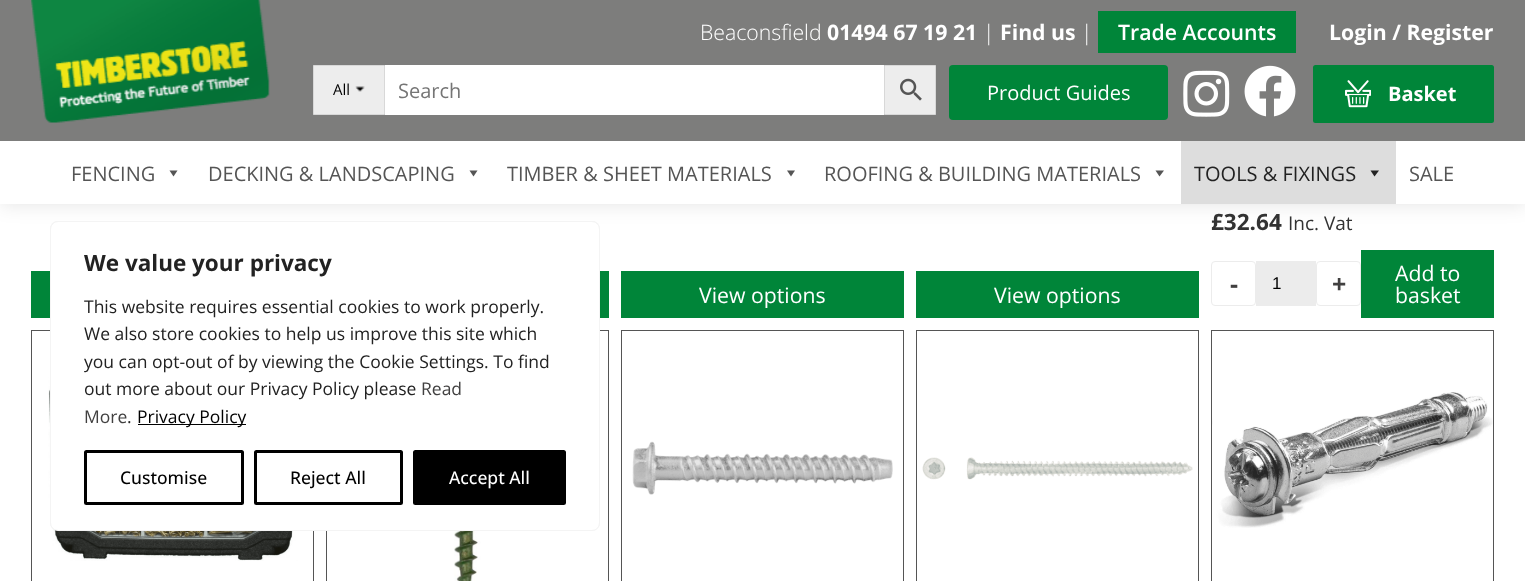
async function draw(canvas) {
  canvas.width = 1525;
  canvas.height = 581;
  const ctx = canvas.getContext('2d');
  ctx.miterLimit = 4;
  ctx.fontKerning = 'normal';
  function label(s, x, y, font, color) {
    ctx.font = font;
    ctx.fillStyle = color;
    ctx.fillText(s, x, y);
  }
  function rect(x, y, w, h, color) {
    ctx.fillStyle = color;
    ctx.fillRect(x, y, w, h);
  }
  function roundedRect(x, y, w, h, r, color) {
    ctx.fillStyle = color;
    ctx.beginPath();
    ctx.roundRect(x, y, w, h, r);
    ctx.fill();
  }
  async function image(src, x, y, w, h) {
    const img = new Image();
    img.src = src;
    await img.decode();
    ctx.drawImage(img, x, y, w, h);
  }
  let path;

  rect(0, 0, 1525, 581, '#fff');
  ctx.fillStyle = '#0000001a';
  ctx.filter = 'blur(9.5px)';
  ctx.beginPath();
  ctx.rect(1, 1, 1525, 204);
  ctx.fill();
  ctx.filter = 'none';
  rect(0, 0, 1525, 141, '#7d7d7c');
  await image('assets/img1.png', 31, 0, 239, 123);
  label('Beaconsfield', 700, 40, '300 21.25px Open Sans', '#fff');
  label('01494 67 19 21', 827, 40, 'bold 21.25px Open Sans', '#fff');
  label('|', 983, 40, '300 21.25px Open Sans', '#fff');
  label('Find us', 1000, 40, 'bold 21.25px Open Sans', '#fff');
  label('|', 1081, 40, '300 21.25px Open Sans', '#fff');
  rect(1098, 11, 198, 42, '#008539');
  label('Trade Accounts', 1118, 40, '600 21.25px Open Sans', '#fff');
  rect(385, 65, 499, 50, '#fff');
  ctx.fillStyle = '#ededed';
  ctx.beginPath();
  ctx.rect(313.5, 65.5, 71, 49);
  ctx.fill();
  ctx.strokeStyle = '#d8d8d8';
  ctx.stroke();
  label('All', 333, 95, '15px Open Sans', '#000');
  await image('assets/img2.png', 355, 86, 10, 6);
  label('Search', 398, 98, '20px Open Sans', '#757575');
  ctx.fillStyle = '#ededed';
  ctx.beginPath();
  ctx.rect(884.5, 65.5, 51, 49);
  ctx.fill();
  ctx.stroke();
  await image('assets/img3.png', 900, 78, 22, 23);
  roundedRect(949, 65, 219, 55, 4, '#008539');
  label('Product Guides', 987, 100, '20px Open Sans', '#fff');
  await image('assets/img4.png', 1183, 70, 47, 47);
  await image('assets/img5.png', 1244, 65, 52, 52);
  label('Login / Register', 1329, 40, 'bold 21.25px Open Sans', '#fff');
  roundedRect(1313, 65, 181, 58, 2.5, '#008539');
  await image('assets/img6.png', 1345, 80, 26, 28);
  label('Basket', 1388, 101, 'bold 20px Open Sans', '#fff');
  rect(0, 141, 1525, 63, '#fff');
  label('FENCING', 71, 181, '20px Open Sans', '#555');
  path = new Path2D('M177.5 170.5L173.5 176.5L169.5 170.5Z');
  ctx.fill(path);
  label('DECKING & LANDSCAPING', 208, 181, '20px Open Sans', '#555');
  path = new Path2D('M477.5 170.5L473.5 176.5L469.5 170.5Z');
  ctx.fill(path);
  label('TIMBER & SHEET MATERIALS', 507, 181, '20px Open Sans', '#555');
  path = new Path2D('M795 170.5L791 176.5L787 170.5Z');
  ctx.fill(path);
  label('ROOFING & BUILDING MATERIALS', 824, 181, '20px Open Sans', '#555');
  path = new Path2D('M1164 170.5L1159.5 176.5L1155.5 170.5Z');
  ctx.fill(path);
  rect(1181, 141, 215, 63, '#ddd');
  label('TOOLS & FIXINGS', 1194, 181, '20px Open Sans', '#222');
  path = new Path2D('M1379 170.5L1374.5 176.5L1370.5 170.5Z');
  ctx.fill(path);
  label('SALE', 1409, 181, '20px Open Sans', '#555');
  rect(31, 271, 19, 47, '#008539');
  rect(600, 271, 9, 47, '#008539');
  await image('assets/img7.png', 48, 377, 250, 184);
  ctx.strokeStyle = '#555';
  ctx.strokeRect(31.5, 330.5, 282, 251);
  await image('assets/img8.png', 447, 531, 41, 50);
  ctx.strokeRect(326.5, 330.5, 282, 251);
  ctx.save();
  ctx.beginPath();
  ctx.roundRect(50, 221, 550, 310, 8);
  ctx.clip();
  ctx.fillStyle = '#acabab4d';
  ctx.filter = 'blur(6px)';
  ctx.beginPath();
  ctx.roundRect(50, 220, 550, 310, 8);
  ctx.fill();
  ctx.filter = 'none';
  ctx.restore();
  ctx.fillStyle = '#fff';
  ctx.beginPath();
  ctx.roundRect(50.5, 221.5, 549, 309, 7.5);
  ctx.fill();
  ctx.strokeStyle = '#f4f4f4';
  ctx.stroke();
  label('We value your privacy', 84, 271, 'bold 22.5px Open Sans', '#222');
  label('This website requires essential cookies to work properly.', 84, 313, '17.5px Open Sans', '#222');
  label('We also store cookies to help us improve this site which', 84, 340, '17.5px Open Sans', '#222');
  label('you can opt-out of by viewing the Cookie Settings. To find', 84, 368, '17.5px Open Sans', '#222');
  label('out more about our Privacy Policy please', 84, 395, '17.5px Open Sans', '#222');
  label('Read', 421, 395, '17.5px Open Sans', '#414040');
  label('More', 84, 423, '17.5px Open Sans', '#414040');
  label('.', 127, 423, '17.5px Open Sans', '#222');
  rect(138, 424, 108, 1, '#000');
  label('Privacy Policy', 137, 423, '17.5px Open Sans', '#000');
  ctx.beginPath();
  ctx.roundRect(85.5, 451.5, 157, 52, 1);
  ctx.strokeStyle = '#000';
  ctx.lineWidth = 3;
  ctx.stroke();
  label('Customise', 120, 484, '500 17.5px Open Sans', '#000');
  ctx.beginPath();
  ctx.roundRect(255.5, 451.5, 146, 52, 1);
  ctx.stroke();
  label('Reject All', 290, 484, '500 17.5px Open Sans', '#000');
  ctx.beginPath();
  ctx.roundRect(414.5, 451.5, 150, 52, 1);
  ctx.fill();
  ctx.stroke();
  label('Accept All', 449, 484, '500 17.5px Open Sans', '#fff');
  rect(621, 271, 283, 47, '#008539');
  label('View options', 699, 303, '21.25px Open Sans', '#fff');
  rect(916, 271, 283, 47, '#008539');
  label('View options', 994, 303, '21.25px Open Sans', '#fff');
  label('£32.64', 1211, 230, 'bold 22.5px Open Sans', '#333');
  label('Inc. Vat', 1288, 230, '19px Open Sans', '#333');
  ctx.beginPath();
  ctx.roundRect(1211.5, 261.5, 44, 44, 3.5);
  ctx.strokeStyle = '#ececec';
  ctx.lineWidth = 1;
  ctx.stroke();
  label('-', 1230, 293, 'bold 25px Open Sans', '#414040');
  rect(1256, 261, 60, 45, '#ececec');
  label('1', 1272, 289, '17px Liberation Sans', '#000');
  ctx.beginPath();
  ctx.roundRect(1316.5, 261.5, 44, 44, 3.5);
  ctx.stroke();
  label('+', 1332, 293, 'bold 25px Open Sans', '#414040');
  rect(1361, 250, 133, 68, '#008539');
  label('Add to', 1395, 281, '21.25px Open Sans', '#fff');
  label('basket', 1395, 303, '21.25px Open Sans', '#fff');
  await image('assets/img9.png', 632, 441, 261, 54);
  ctx.strokeStyle = '#555';
  ctx.strokeRect(621.5, 330.5, 282, 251);
  await image('assets/img10.png', 922, 457, 271, 23);
  ctx.strokeRect(916.5, 330.5, 282, 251);
  await image('assets/img11.png', 1212, 392, 281, 136);
  ctx.strokeRect(1211.5, 330.5, 282, 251);
}

draw(document.querySelector('canvas'));
